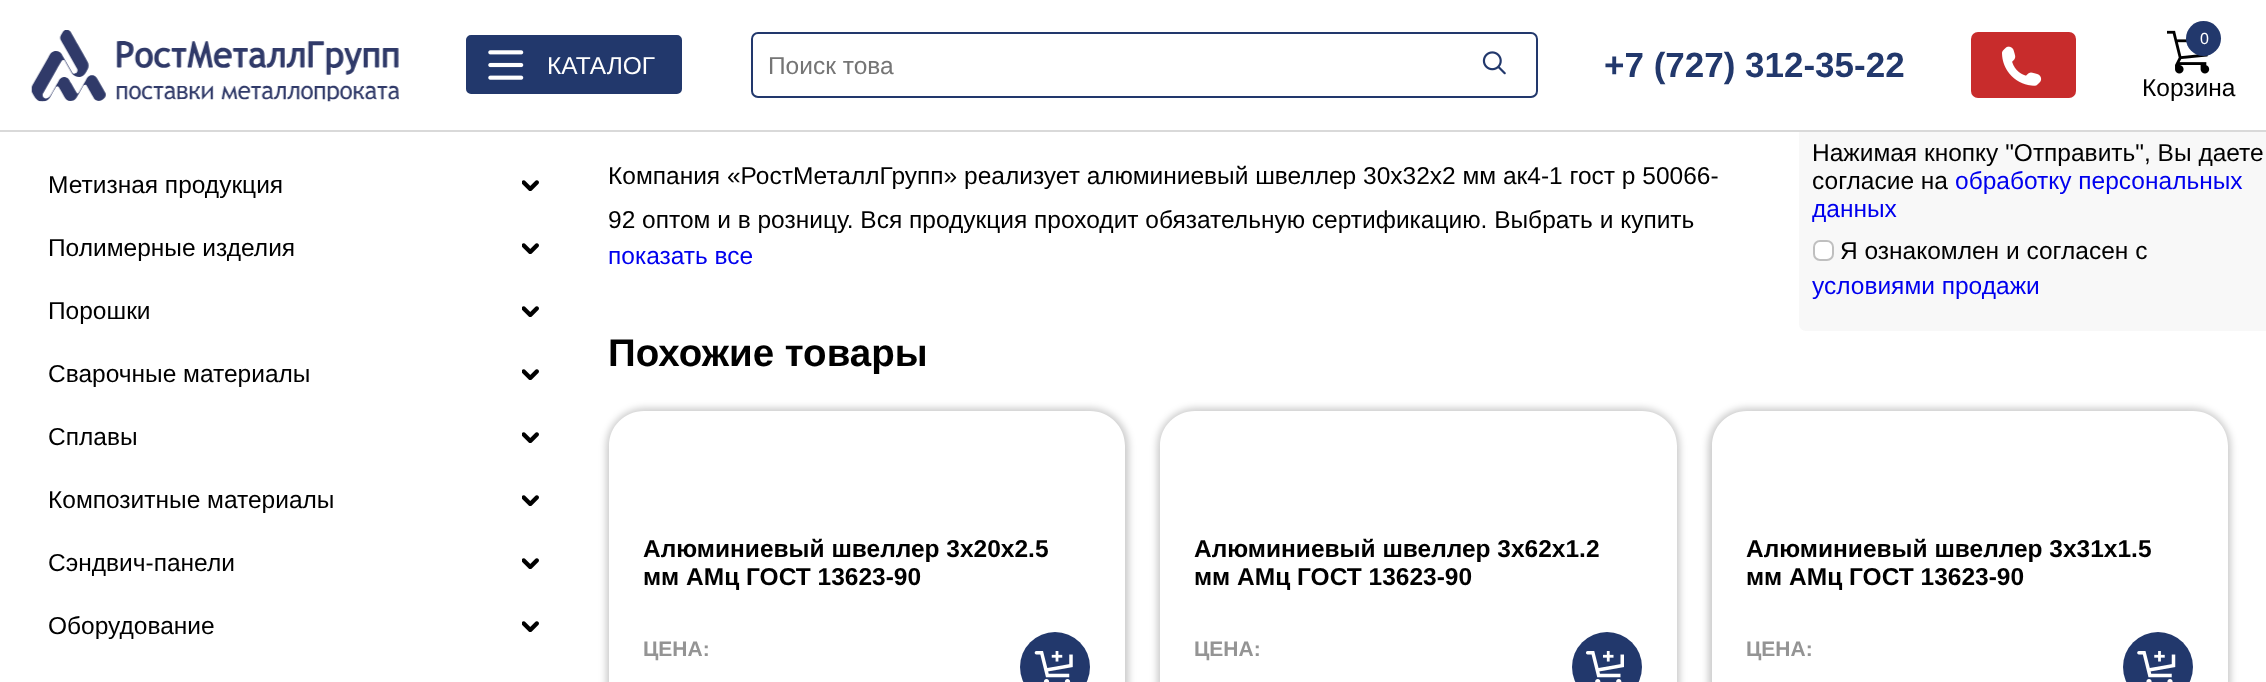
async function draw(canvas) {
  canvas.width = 2266;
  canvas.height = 682;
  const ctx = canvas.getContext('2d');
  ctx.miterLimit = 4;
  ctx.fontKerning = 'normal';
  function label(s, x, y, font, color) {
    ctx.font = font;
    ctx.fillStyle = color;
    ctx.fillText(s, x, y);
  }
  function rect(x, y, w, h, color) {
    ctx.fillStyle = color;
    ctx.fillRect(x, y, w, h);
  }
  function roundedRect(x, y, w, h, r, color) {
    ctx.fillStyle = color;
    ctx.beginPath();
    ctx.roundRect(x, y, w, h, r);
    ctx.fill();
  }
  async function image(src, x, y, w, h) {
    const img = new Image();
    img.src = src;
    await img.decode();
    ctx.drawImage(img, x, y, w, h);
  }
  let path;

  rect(0, 0, 2266, 682, '#fff');
  roundedRect(1799, -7, 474, 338, 7, '#f8f8f8');
  rect(1799, 0, 467, 130, '#fff');
  rect(0, 130, 2266, 2, '#d9d9d9');
  await image('assets/img1.png', 31, 30, 368, 72);
  ctx.fillStyle = '#22386c';
  ctx.beginPath();
  ctx.roundRect(465, 34, 218, 61, 6);
  ctx.fill();
  ctx.strokeStyle = '#fff';
  ctx.lineWidth = 2;
  ctx.stroke();
  await image('assets/img2.png', 488, 50, 36, 30);
  label('КАТАЛОГ', 547, 74, '24.5px Liberation Sans', '#fff');
  ctx.beginPath();
  ctx.roundRect(752, 33, 785, 64, 6);
  ctx.strokeStyle = '#22386c';
  ctx.stroke();
  label('Поиск това', 768, 74, '24.5px Liberation Sans', '#757575');
  await image('assets/img3.png', 1482, 51, 24, 24);
  label('+7 (727) 312-35-22', 1604, 77, 'bold 35px Liberation Sans', '#22386c');
  roundedRect(1971, 32, 105, 66, 7, '#c82c2c');
  await image('assets/img4.png', 2002, 46, 40, 40);
  await image('assets/img5.png', 2167, 30, 43, 44);
  ctx.fillStyle = '#22386c';
  ctx.beginPath();
  ctx.arc(2203.5, 38.5, 17.5, 0, 2 * Math.PI);
  ctx.fill();
  label('0', 2200, 44, '16px Liberation Sans', '#fff');
  label('Корзина', 2142, 96, '24.5px Liberation Sans', '#000');
  label('Метизная продукция', 48, 193, '24.5px Liberation Sans', '#000');
  await image('assets/img6.png', 522, 180, 17, 11);
  label('Полимерные изделия', 48, 256, '24.5px Liberation Sans', '#000');
  await image('assets/img6.png', 522, 243, 17, 11);
  label('Порошки', 48, 319, '24.5px Liberation Sans', '#000');
  await image('assets/img6.png', 522, 306, 17, 11);
  label('Сварочные материалы', 48, 382, '24.5px Liberation Sans', '#000');
  await image('assets/img6.png', 522, 369, 17, 11);
  label('Сплавы', 48, 445, '24.5px Liberation Sans', '#000');
  await image('assets/img6.png', 522, 432, 17, 11);
  label('Композитные материалы', 48, 508, '24.5px Liberation Sans', '#000');
  await image('assets/img6.png', 522, 495, 17, 11);
  label('Сэндвич-панели', 48, 571, '24.5px Liberation Sans', '#000');
  await image('assets/img6.png', 522, 558, 17, 11);
  label('Оборудование', 48, 634, '24.5px Liberation Sans', '#000');
  await image('assets/img6.png', 522, 621, 17, 11);
  label('Компания «РостМеталлГрупп» реализует алюминиевый швеллер 30х32х2 мм ак4-1 гост р 50066-', 608, 184, '24.5px Liberation Sans', '#000');
  label('92 оптом и в розницу. Вся продукция проходит обязательную сертификацию. Выбрать и купить', 608, 228, '24.5px Liberation Sans', '#000');
  label('показать все', 608, 264, '24.5px Liberation Sans', '#00e');
  label('Нажимая кнопку "Отправить", Вы даете', 1812, 161, '24.5px Liberation Sans', '#000');
  label('согласие на', 1812, 189, '24.5px Liberation Sans', '#000');
  label('обработку персональных', 1955, 189, '24.5px Liberation Sans', '#00e');
  label('данных', 1812, 217, '24.5px Liberation Sans', '#00e');
  roundedRect(1813, 240, 21, 21, 7, '#fff');
  ctx.beginPath();
  ctx.roundRect(1814, 241, 19, 19, 6);
  ctx.strokeStyle = '#00000040';
  ctx.stroke();
  label('Я ознакомлен и согласен с', 1840, 259, '24.5px Liberation Sans', '#000');
  label('условиями продажи', 1812, 294, '24.5px Liberation Sans', '#00e');
  label('Похожие товары', 608, 366, 'bold 38.5px Liberation Sans', '#000');
  ctx.save();
  path = new Path2D('M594 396H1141V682H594ZM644 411H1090C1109.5 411 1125 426.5 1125 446V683C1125 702.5 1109.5 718 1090 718H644C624.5 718 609 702.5 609 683V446C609 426.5 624.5 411 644 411Z');
  ctx.clip(path, 'evenodd');
  ctx.fillStyle = '#00000033';
  ctx.filter = 'blur(3.5px)';
  ctx.beginPath();
  ctx.roundRect(606, 408, 523, 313, 39);
  ctx.fill();
  ctx.filter = 'none';
  ctx.restore();
  label('Алюминиевый швеллер 3х20х2.5', 643, 557, 'bold 24.5px Liberation Sans', '#000');
  label('мм АМц ГОСТ 13623-90', 643, 585, 'bold 24.5px Liberation Sans', '#000');
  label('ЦЕНА:', 643, 656, 'bold 21px Liberation Sans', '#949494');
  ctx.fillStyle = '#22386c';
  ctx.beginPath();
  ctx.arc(1055, 667, 35, 0, 2 * Math.PI);
  ctx.fill();
  await image('assets/img7.png', 1034, 651, 39, 31);
  ctx.save();
  path = new Path2D('M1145 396H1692V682H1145ZM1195 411H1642C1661.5 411 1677 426.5 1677 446V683C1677 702.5 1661.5 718 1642 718H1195C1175.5 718 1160 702.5 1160 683V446C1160 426.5 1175.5 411 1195 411Z');
  ctx.clip(path, 'evenodd');
  ctx.fillStyle = '#00000033';
  ctx.filter = 'blur(3.5px)';
  ctx.beginPath();
  ctx.roundRect(1157, 408, 523, 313, 39);
  ctx.fill();
  ctx.filter = 'none';
  ctx.restore();
  label('Алюминиевый швеллер 3х62х1.2', 1194, 557, 'bold 24.5px Liberation Sans', '#000');
  label('мм АМц ГОСТ 13623-90', 1194, 585, 'bold 24.5px Liberation Sans', '#000');
  label('ЦЕНА:', 1194, 656, 'bold 21px Liberation Sans', '#949494');
  ctx.fillStyle = '#22386c';
  ctx.beginPath();
  ctx.arc(1607, 667, 35, 0, 2 * Math.PI);
  ctx.fill();
  await image('assets/img8.png', 1586, 651, 38, 31);
  ctx.save();
  path = new Path2D('M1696 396H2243V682H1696ZM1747 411H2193C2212.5 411 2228 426.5 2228 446V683C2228 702.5 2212.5 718 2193 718H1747C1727.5 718 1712 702.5 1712 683V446C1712 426.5 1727.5 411 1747 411Z');
  ctx.clip(path, 'evenodd');
  ctx.fillStyle = '#00000033';
  ctx.filter = 'blur(3.5px)';
  ctx.beginPath();
  ctx.roundRect(1708, 408, 523, 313, 39);
  ctx.fill();
  ctx.filter = 'none';
  ctx.restore();
  label('Алюминиевый швеллер 3х31х1.5', 1746, 557, 'bold 24.5px Liberation Sans', '#000');
  label('мм АМц ГОСТ 13623-90', 1746, 585, 'bold 24.5px Liberation Sans', '#000');
  label('ЦЕНА:', 1746, 656, 'bold 21px Liberation Sans', '#949494');
  ctx.fillStyle = '#22386c';
  ctx.beginPath();
  ctx.arc(2158, 667, 35, 0, 2 * Math.PI);
  ctx.fill();
  await image('assets/img9.png', 2137, 651, 39, 31);
}

draw(document.querySelector('canvas'));
